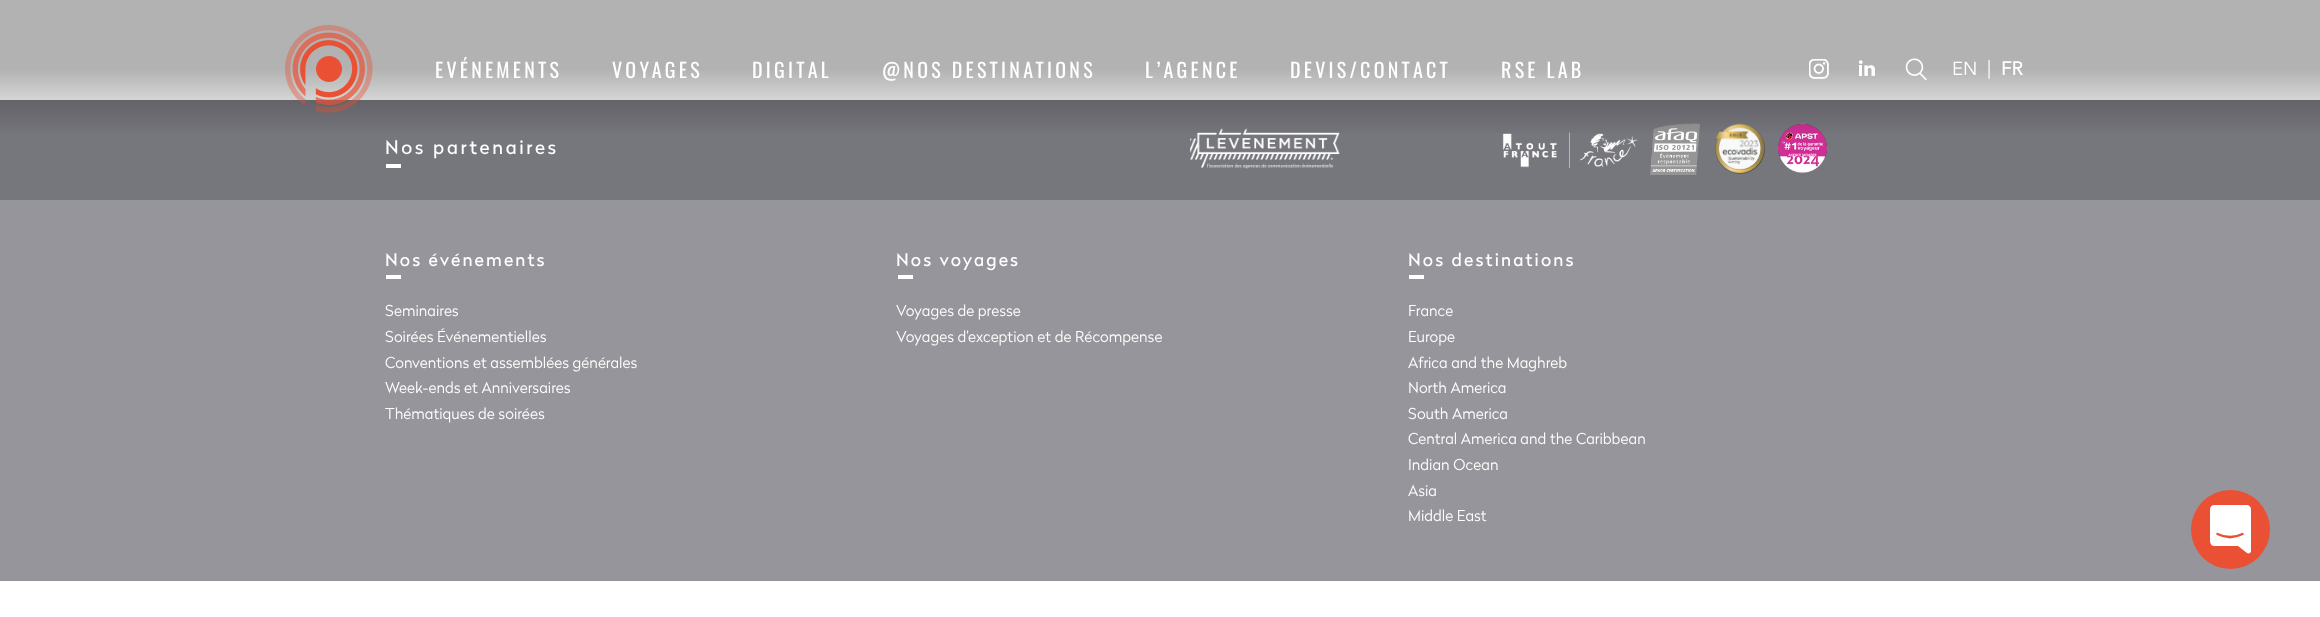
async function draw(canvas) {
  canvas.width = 2320;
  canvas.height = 617;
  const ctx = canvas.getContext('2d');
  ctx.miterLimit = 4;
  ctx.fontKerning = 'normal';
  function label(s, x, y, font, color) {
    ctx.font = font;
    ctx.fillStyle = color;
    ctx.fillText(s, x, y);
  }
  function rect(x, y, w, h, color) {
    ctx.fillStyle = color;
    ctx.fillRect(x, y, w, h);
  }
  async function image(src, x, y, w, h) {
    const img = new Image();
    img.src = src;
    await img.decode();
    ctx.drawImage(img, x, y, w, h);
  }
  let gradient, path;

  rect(0, 0, 2320, 617, '#fff');
  rect(0, 100, 2320, 100, '#76767d');
  await image('assets/img5.png', 1190, 128, 150, 41);
  await image('assets/img6.png', 1502, 132, 136, 36);
  await image('assets/img7.png', 1650, 123, 50, 52);
  await image('assets/img8.png', 1715, 123, 50, 51);
  await image('assets/img9.png', 1777, 123, 51, 50);
  gradient = ctx.createLinearGradient(1160, 0, 1160, 138);
  gradient.addColorStop(0, '#0000004d');
  gradient.addColorStop(0.5, '#0000004d');
  gradient.addColorStop(1, '#00000000');
  ctx.fillStyle = gradient;
  ctx.fillRect(0, 0, 2320, 133);
  await image('assets/img1.png', 285, 25, 88, 88);
  ctx.letterSpacing = '3.25px';
  label('EVÉNEMENTS', 435, 78, '20px Oswald', '#fff');
  label('VOYAGES', 612, 78, '20px Oswald', '#fff');
  label('DIGITAL', 752, 78, '20px Oswald', '#fff');
  label('@NOS DESTINATIONS', 882, 78, '20px Oswald', '#fff');
  label('L’AGENCE', 1145, 78, '20px Oswald', '#fff');
  label('DEVIS/CONTACT', 1290, 78, '20px Oswald', '#fff');
  label('RSE LAB', 1501, 78, '20px Oswald', '#fff');
  await image('assets/img2.png', 1809, 59, 20, 20);
  await image('assets/img3.png', 1859, 60, 16, 16);
  await image('assets/img4.png', 1905, 58, 22, 23);
  ctx.letterSpacing = '0px';
  label('EN', 1952, 75, '18.75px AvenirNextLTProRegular', '#fff');
  label('|', 1987, 74, '18.75px AvenirNextLTProRegular', '#fff');
  label('FR', 2001, 75, 'bold 18.75px AvenirNextLTProRegular', '#fff');
  ctx.letterSpacing = '2.6px';
  label('Nos partenaires', 385, 154, '18.75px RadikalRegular', '#fff');
  rect(386, 164, 15, 4, '#fff');
  rect(0, 200, 2320, 381, '#95959b');
  ctx.letterSpacing = '2.1px';
  label('Nos événements', 385, 266, '17.5px RadikalRegular', '#fff');
  rect(386, 275, 15, 4, '#fff');
  ctx.letterSpacing = '0px';
  label('Seminaires', 385, 316, '15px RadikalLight', '#fff');
  label('Soirées Événementielles', 385, 342, '15px RadikalLight', '#fff');
  label('Conventions et assemblées générales', 385, 368, '15px RadikalLight', '#fff');
  label('Week-ends et Anniversaires', 385, 393, '15px RadikalLight', '#fff');
  label('Thématiques de soirées', 385, 419, '15px RadikalLight', '#fff');
  ctx.letterSpacing = '2.1px';
  label('Nos voyages', 896, 266, '17.5px RadikalRegular', '#fff');
  rect(898, 275, 15, 4, '#fff');
  ctx.letterSpacing = '0px';
  label('Voyages de presse', 896, 316, '15px RadikalLight', '#fff');
  label('Voyages d’exception et de Récompense', 896, 342, '15px RadikalLight', '#fff');
  ctx.letterSpacing = '2.1px';
  label('Nos destinations', 1408, 266, '17.5px RadikalRegular', '#fff');
  rect(1409, 275, 15, 4, '#fff');
  ctx.letterSpacing = '0px';
  label('France', 1408, 316, '15px RadikalLight', '#fff');
  label('Europe', 1408, 342, '15px RadikalLight', '#fff');
  label('Africa and the Maghreb', 1408, 368, '15px RadikalLight', '#fff');
  label('North America', 1408, 393, '15px RadikalLight', '#fff');
  label('South America', 1408, 419, '15px RadikalLight', '#fff');
  label('Central America and the Caribbean', 1408, 444, '15px RadikalLight', '#fff');
  label('Indian Ocean', 1408, 470, '15px RadikalLight', '#fff');
  label('Asia', 1408, 496, '15px RadikalLight', '#fff');
  label('Middle East', 1408, 521, '15px RadikalLight', '#fff');
  ctx.fillStyle = '#e95034';
  ctx.beginPath();
  ctx.arc(2230.5, 529.5, 39.5, 0, 2 * Math.PI);
  ctx.fill();
  ctx.fillStyle = '#fff';
  path = new Path2D('M2247 505H2214C2212 505 2210 507 2210 509V541C2210 544 2212 546 2214 546H2238L2247 553C2249 554 2251 553 2251 551V509C2251 507 2249 505 2247 505Z');
  ctx.fill(path);
  path = new Path2D('M2217.5 534C2225.5 538 2234.5 538 2242.5 534');
  ctx.strokeStyle = '#e95034';
  ctx.lineWidth = 2.5;
  ctx.lineCap = 'round';
  ctx.stroke(path);
}

draw(document.querySelector('canvas'));
